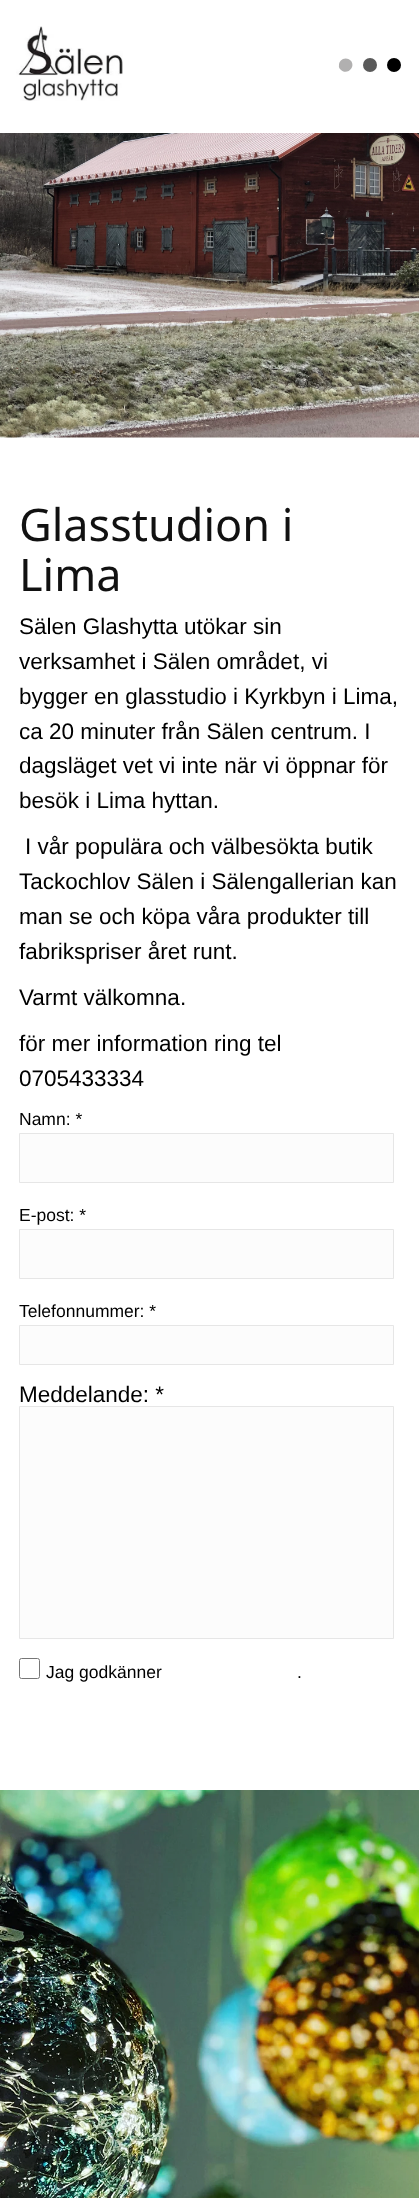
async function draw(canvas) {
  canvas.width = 419;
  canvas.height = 2198;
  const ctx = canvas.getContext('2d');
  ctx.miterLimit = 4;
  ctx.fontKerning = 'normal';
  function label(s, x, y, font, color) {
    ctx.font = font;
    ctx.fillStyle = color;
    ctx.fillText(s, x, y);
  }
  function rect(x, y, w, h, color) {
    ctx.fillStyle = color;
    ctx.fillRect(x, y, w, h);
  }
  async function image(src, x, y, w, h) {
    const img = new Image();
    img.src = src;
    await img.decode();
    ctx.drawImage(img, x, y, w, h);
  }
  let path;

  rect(0, 0, 419, 2198, '#fff');
  await image('assets/img1.png', 16, 26, 107, 75);
  ctx.fillStyle = '#000';
  ctx.beginPath();
  ctx.arc(394, 65, 7, 0, 2 * Math.PI);
  ctx.fill();
  ctx.fillStyle = '#b1b0b0';
  path = new Path2D('M345.5 58.5C348 58.5 350 59.5 351.5 61.5C355.5 68.5 346 75.5 340.5 69.5C339.5 68.5 338.5 67 339 65C339 61.5 342 58.5 345.5 58.5Z');
  ctx.fill(path, 'evenodd');
  ctx.fillStyle = '#5a5a5a';
  ctx.beginPath();
  ctx.arc(370, 65, 7, 0, 2 * Math.PI);
  ctx.fill();
  await image('assets/img2.png', 0, 133, 419, 305);
  label('Glasstudion i', 19, 541, '45px Noto Sans', '#111');
  label('Lima', 19, 591, '45px Noto Sans', '#111');
  label('Sälen Glashytta utökar sin', 19, 634, '22.5px Liberation Sans', '#000');
  label('verksamhet i Sälen området, vi', 19, 669, '22.5px Liberation Sans', '#000');
  label('bygger en glasstudio i Kyrkbyn i Lima,', 19, 704, '22.5px Liberation Sans', '#000');
  label('ca 20 minuter från Sälen centrum. I', 19, 739, '22.5px Liberation Sans', '#000');
  label('dagsläget vet vi inte när vi öppnar för', 19, 773, '22.5px Liberation Sans', '#000');
  label('besök i Lima hyttan.', 19, 808, '22.5px Liberation Sans', '#000');
  label('I vår populära och välbesökta butik', 25, 854, '22.5px Liberation Sans', '#000');
  label('Tackochlov Sälen i Sälengallerian kan', 19, 889, '22.5px Liberation Sans', '#000');
  label('man se och köpa våra produkter till', 19, 924, '22.5px Liberation Sans', '#000');
  label('fabrikspriser året runt.', 19, 959, '22.5px Liberation Sans', '#000');
  label('Varmt välkomna.', 19, 1005, '22.5px Liberation Sans', '#000');
  label('för mer information ring tel', 19, 1051, '22.5px Liberation Sans', '#000');
  label('0705433334', 19, 1086, '22.5px Liberation Sans', '#000');
  label('Namn: *', 19, 1125, '17.5px Liberation Sans', '#000');
  ctx.fillStyle = '#fcfcfc';
  ctx.beginPath();
  ctx.rect(19.5, 1133.5, 374, 49);
  ctx.fill();
  ctx.strokeStyle = '#e6e6e6';
  ctx.stroke();
  label('E-post: *', 19, 1221, '17.5px Liberation Sans', '#000');
  ctx.fillStyle = '#fcfcfc';
  ctx.beginPath();
  ctx.rect(19.5, 1229.5, 374, 49);
  ctx.fill();
  ctx.stroke();
  label('Telefonnummer: *', 19, 1317, '17.5px Liberation Sans', '#000');
  ctx.fillStyle = '#fcfcfc';
  ctx.beginPath();
  ctx.rect(19.5, 1325.5, 374, 39);
  ctx.fill();
  ctx.stroke();
  label('Meddelande: *', 19, 1402, '22.5px Liberation Sans', '#000');
  ctx.fillStyle = '#fcfcfc';
  ctx.beginPath();
  ctx.rect(19.5, 1406.5, 374, 232);
  ctx.fill();
  ctx.stroke();
  ctx.beginPath();
  ctx.roundRect(19.5, 1658.5, 20, 20, 2);
  ctx.strokeStyle = '#767676';
  ctx.stroke();
  label('Jag godkänner', 46, 1678, '17.5px Liberation Sans', '#000');
  label('.', 297, 1678, '17.5px Liberation Sans', '#000');
  await image('assets/img3.png', 0, 1790, 419, 408);
}

draw(document.querySelector('canvas'));
